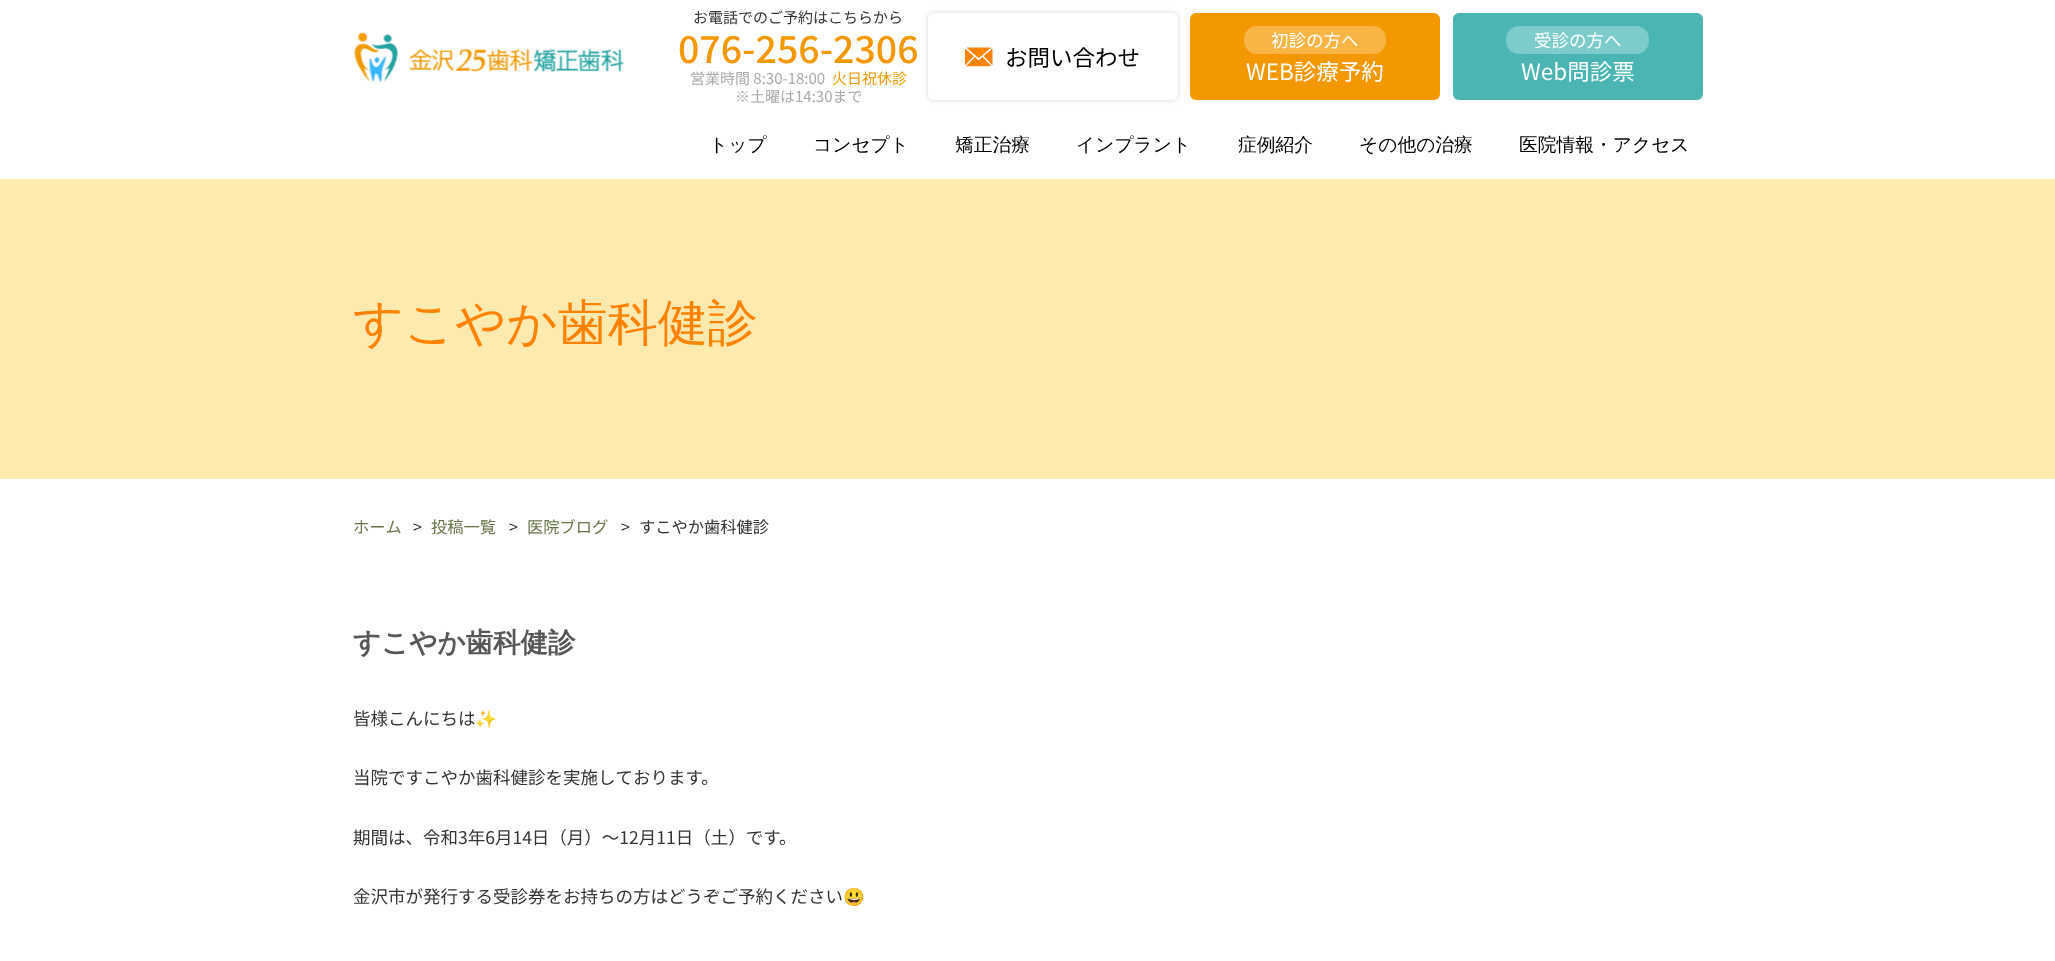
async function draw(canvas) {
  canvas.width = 2055;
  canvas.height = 961;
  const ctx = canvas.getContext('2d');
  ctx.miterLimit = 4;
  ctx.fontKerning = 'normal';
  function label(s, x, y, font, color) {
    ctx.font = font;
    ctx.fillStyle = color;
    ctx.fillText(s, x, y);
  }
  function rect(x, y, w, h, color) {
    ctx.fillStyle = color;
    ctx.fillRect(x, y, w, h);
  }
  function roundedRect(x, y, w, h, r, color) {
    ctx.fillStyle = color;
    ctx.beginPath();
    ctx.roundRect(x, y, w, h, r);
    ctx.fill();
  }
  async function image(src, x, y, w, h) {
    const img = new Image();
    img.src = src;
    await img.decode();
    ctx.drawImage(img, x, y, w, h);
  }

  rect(0, 0, 2055, 961, '#fff');
  await image('assets/img1.png', 354, 32, 270, 50);
  label('お電話でのご予約はこちらから', 693, 23, '15px Noto Sans JP', '#333');
  label('076-256-2306', 678, 63, '500 37.5px Noto Sans JP', '#f39800');
  label('営業時間 8:30-18:00', 690, 84, '15px Noto Sans JP', '#aaa');
  label('火日祝休診', 832, 84, '15px Noto Sans JP', '#f39800');
  label('※土曜は14:30まで', 735, 102, '15px Noto Sans JP', '#aaa');
  ctx.fillStyle = '#95959566';
  ctx.filter = 'blur(2.5px)';
  ctx.beginPath();
  ctx.roundRect(928, 13, 250, 87, 6);
  ctx.fill();
  ctx.filter = 'none';
  roundedRect(928, 13, 250, 87, 6, '#fff');
  await image('assets/img2.png', 965, 47, 28, 20);
  label('お問い合わせ', 1005, 66, '22.5px Noto Sans JP', '#000');
  roundedRect(1190, 13, 250, 87, 6, '#f39800');
  roundedRect(1244, 26, 142, 28, 13, '#f8b444');
  label('初診の方へ', 1271, 47, '17.5px Noto Sans JP', '#fff');
  label('WEB診療予約', 1246, 80, '22.5px Noto Sans JP', '#fff');
  roundedRect(1453, 13, 250, 87, 6, '#4ab5b3');
  roundedRect(1506, 26, 143, 28, 13, '#7ccccb');
  label('受診の方へ', 1534, 47, '17.5px Noto Sans JP', '#fff');
  label('Web問診票', 1521, 80, '22.5px Noto Sans JP', '#fff');
  label('トップ', 709, 151, '500 18.75px WenQuanYi Zen Hei', '#000');
  label('コンセプト', 813, 151, '500 18.75px WenQuanYi Zen Hei', '#000');
  label('矯正治療', 955, 151, '500 18.75px WenQuanYi Zen Hei', '#000');
  label('インプラント', 1076, 151, '500 18.75px WenQuanYi Zen Hei', '#000');
  label('症例紹介', 1238, 151, '500 18.75px WenQuanYi Zen Hei', '#000');
  label('その他の治療', 1359, 151, '500 18.75px WenQuanYi Zen Hei', '#000');
  label('医院情報・アクセス', 1519, 151, '500 18.75px WenQuanYi Zen Hei', '#000');
  rect(0, 179, 2055, 300, '#feeaaf');
  label('すこやか歯科健診', 353, 340, '500 50px WenQuanYi Zen Hei', '#ff8300');
  label('ホーム', 353, 533, '16.25px Noto Sans JP', '#697649');
  label('>', 413, 533, '16.25px Noto Sans JP', '#333');
  label('投稿一覧', 431, 533, '16.25px Noto Sans JP', '#697649');
  label('>', 509, 533, '16.25px Noto Sans JP', '#333');
  label('医院ブログ', 527, 533, '16.25px Noto Sans JP', '#697649');
  label('>', 621, 533, '16.25px Noto Sans JP', '#333');
  label('すこやか歯科健診', 639, 533, '16.25px Noto Sans JP', '#333');
  label('すこやか歯科健診', 353, 652, 'bold 27.5px WenQuanYi Zen Hei', '#585858');
  label('皆様こんにちは', 353, 725, '17.5px Noto Sans JP', '#333');
  label('✨', 475, 725, '17.5px Noto Color Emoji', '#333');
  label('当院ですこやか歯科健診を実施しております。', 353, 784, '17.5px Noto Sans JP', '#333');
  label('期間は、令和3年6月14日（月）～12月11日（土）です。', 353, 844, '17.5px Noto Sans JP', '#333');
  label('金沢市が発行する受診券をお持ちの方はどうぞご予約ください', 353, 903, '17.5px Noto Sans JP', '#333');
  label('😃', 843, 903, '17.5px Noto Color Emoji', '#333');
}

draw(document.querySelector('canvas'));
